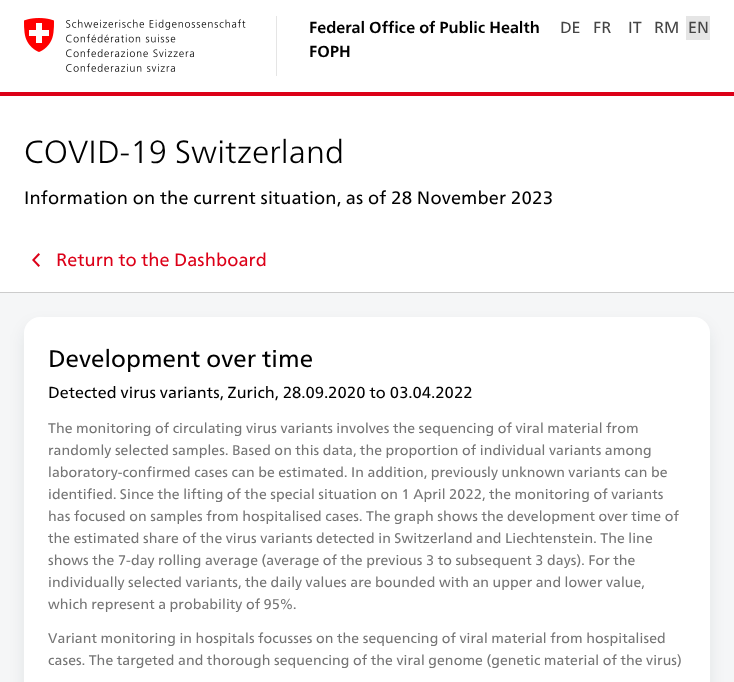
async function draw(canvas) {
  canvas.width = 734;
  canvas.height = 682;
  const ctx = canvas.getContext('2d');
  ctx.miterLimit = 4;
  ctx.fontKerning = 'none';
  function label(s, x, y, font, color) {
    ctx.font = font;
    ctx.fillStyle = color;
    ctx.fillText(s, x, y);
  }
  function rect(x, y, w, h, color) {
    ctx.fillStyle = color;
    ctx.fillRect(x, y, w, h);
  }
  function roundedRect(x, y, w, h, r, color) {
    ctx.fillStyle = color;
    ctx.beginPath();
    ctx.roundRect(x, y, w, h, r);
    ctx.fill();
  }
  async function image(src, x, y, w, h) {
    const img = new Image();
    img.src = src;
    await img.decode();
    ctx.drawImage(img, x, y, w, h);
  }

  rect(0, 0, 734, 682, '#fff');
  rect(0, 92, 734, 4, '#dc0018');
  await image('assets/img1.png', 24, 18, 222, 54);
  rect(276, 16, 1, 60, '#e5e5e5');
  label('Federal Office of Public Health', 309, 33, 'bold 16px "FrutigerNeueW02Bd"', '#000');
  label('FOPH', 309, 57, 'bold 16px "FrutigerNeueW02Bd"', '#000');
  label('DE', 560, 33, '16px "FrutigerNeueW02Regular"', '#454545');
  label('FR', 593, 33, '16px "FrutigerNeueW02Regular"', '#454545');
  label('IT', 628, 33, '16px "FrutigerNeueW02Regular"', '#454545');
  label('RM', 654, 33, '16px "FrutigerNeueW02Regular"', '#454545');
  rect(686, 16, 24, 24, '#e5e5e5');
  label('EN', 688, 33, '16px "FrutigerNeueW02Regular"', '#454545');
  ctx.letterSpacing = '0.1px';
  label('COVID-19 Switzerland', 24, 163, '300 32px "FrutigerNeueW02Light"', '#000');
  ctx.letterSpacing = '0.2px';
  label('Information on the current situation, as of 28 November 2023', 24, 204, '18px "FrutigerNeueW02Regular"', '#000');
  await image('assets/img2.png', 32, 253, 8, 14);
  ctx.letterSpacing = '0.1px';
  label('Return to the Dashboard', 56, 266, '18px "FrutigerNeueW02Regular"', '#dc0018');
  rect(0, 293, 734, 389, '#f5f6f7');
  rect(0, 292, 734, 1, '#ccc');
  ctx.fillStyle = '#0d1b2914';
  ctx.filter = 'blur(8px)';
  ctx.beginPath();
  ctx.roundRect(24, 325, 686, 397, 16);
  ctx.fill();
  ctx.filter = 'none';
  roundedRect(24, 317, 686, 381, 16, '#fff');
  label('Development over time', 48, 367, '24px "FrutigerNeueW02Regular"', '#000');
  label('Detected virus variants, Zurich, 28.09.2020 to 03.04.2022', 48, 398, '16px "FrutigerNeueW02Regular"', '#000');
  label('The monitoring of circulating virus variants involves the sequencing of viral material from', 48, 433, '14px "FrutigerNeueW02Regular"', '#757575');
  label('randomly selected samples. Based on this data, the proportion of individual variants among', 48, 455, '14px "FrutigerNeueW02Regular"', '#757575');
  label('laboratory-confirmed cases can be estimated. In addition, previously unknown variants can be', 48, 477, '14px "FrutigerNeueW02Regular"', '#757575');
  label('identified. Since the lifting of the special situation on 1 April 2022, the monitoring of variants', 48, 499, '14px "FrutigerNeueW02Regular"', '#757575');
  label('has focused on samples from hospitalised cases. The graph shows the development over time of', 48, 521, '14px "FrutigerNeueW02Regular"', '#757575');
  label('the estimated share of the virus variants detected in Switzerland and Liechtenstein. The line', 48, 543, '14px "FrutigerNeueW02Regular"', '#757575');
  label('shows the 7-day rolling average (average of the previous 3 to subsequent 3 days). For the', 48, 565, '14px "FrutigerNeueW02Regular"', '#757575');
  label('individually selected variants, the daily values are bounded with an upper and lower value,', 48, 587, '14px "FrutigerNeueW02Regular"', '#757575');
  label('which represent a probability of 95%.', 48, 609, '14px "FrutigerNeueW02Regular"', '#757575');
  label('Variant monitoring in hospitals focusses on the sequencing of viral material from hospitalised', 48, 643, '14px "FrutigerNeueW02Regular"', '#757575');
  label('cases. The targeted and thorough sequencing of the viral genome (genetic material of the virus)', 48, 665, '14px "FrutigerNeueW02Regular"', '#757575');
}

draw(document.querySelector('canvas'));
